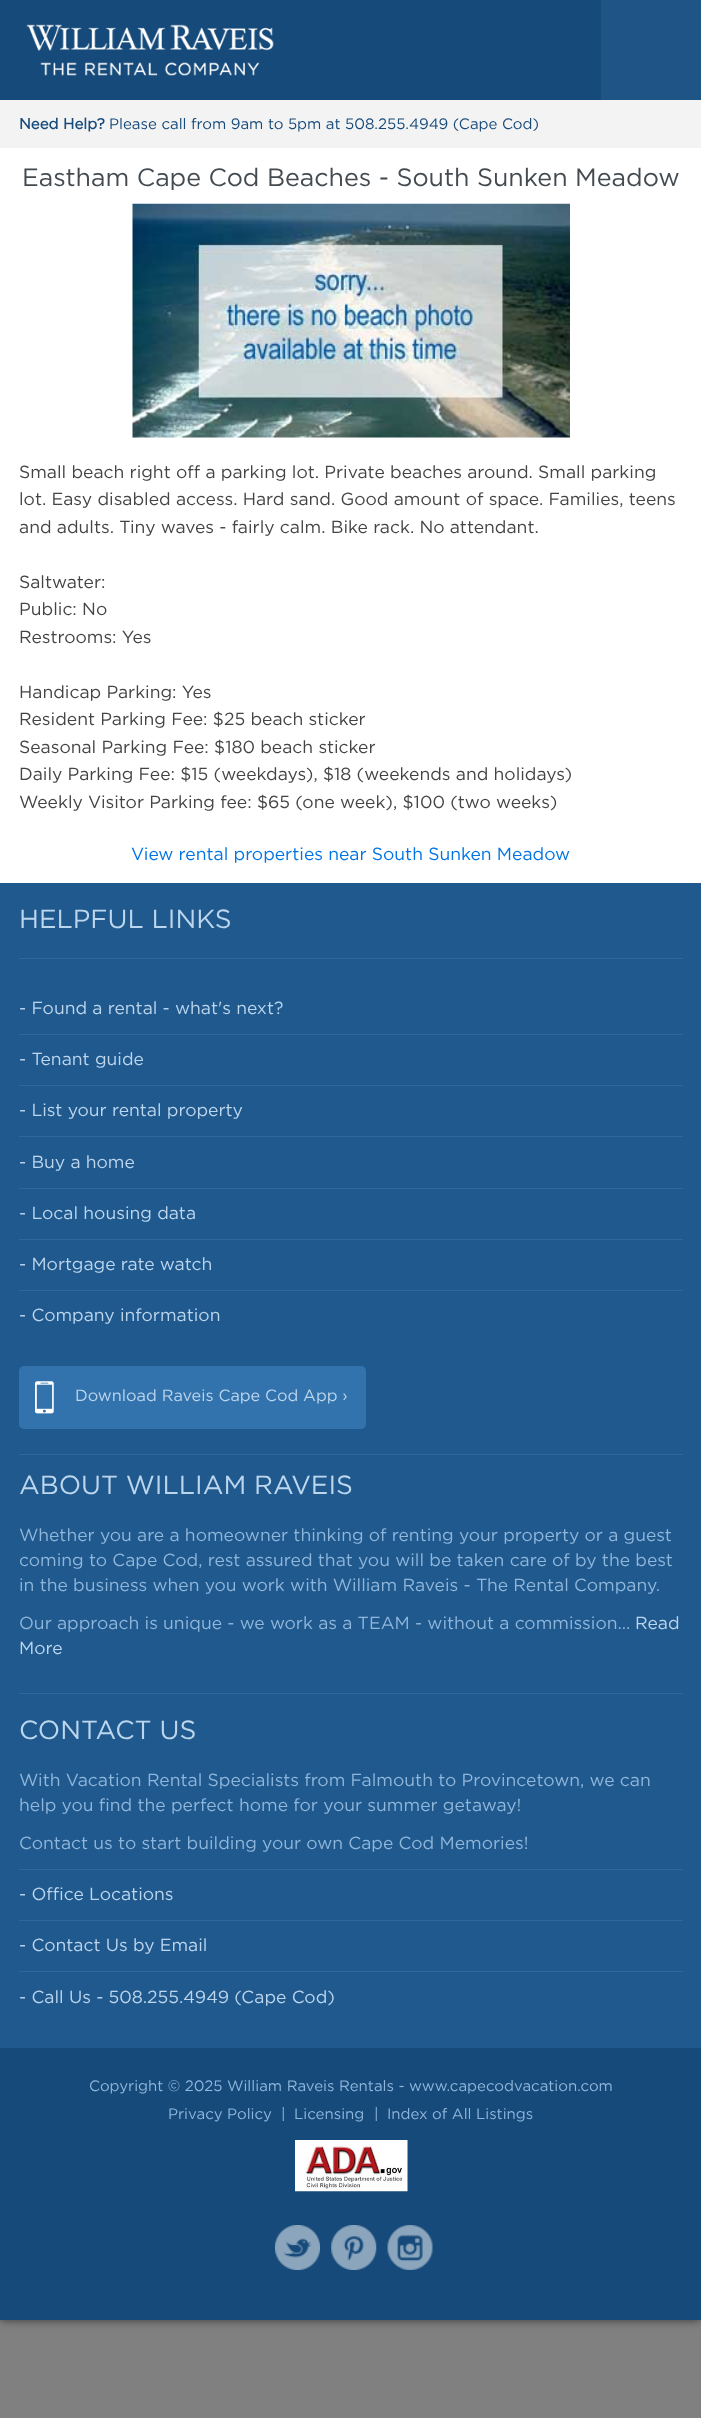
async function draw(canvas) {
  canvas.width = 701;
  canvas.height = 2418;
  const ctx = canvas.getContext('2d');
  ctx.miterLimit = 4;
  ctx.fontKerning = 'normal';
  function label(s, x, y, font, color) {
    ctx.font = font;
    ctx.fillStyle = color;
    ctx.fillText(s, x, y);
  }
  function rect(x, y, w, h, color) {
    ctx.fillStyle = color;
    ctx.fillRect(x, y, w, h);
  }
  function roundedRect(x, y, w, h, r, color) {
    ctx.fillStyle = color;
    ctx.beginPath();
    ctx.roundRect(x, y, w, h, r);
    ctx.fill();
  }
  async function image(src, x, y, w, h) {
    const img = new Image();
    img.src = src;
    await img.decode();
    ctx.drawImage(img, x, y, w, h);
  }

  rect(0, 0, 701, 2418, '#808080');
  ctx.fillStyle = '#00000099';
  ctx.filter = 'blur(5px)';
  ctx.beginPath();
  ctx.rect(0, 0, 701, 2320);
  ctx.fill();
  ctx.filter = 'none';
  rect(0, 0, 601, 100, '#164a7a');
  await image('assets/img1.png', 26, 24, 248, 52);
  rect(601, 0, 100, 100, '#1f5586');
  rect(0, 100, 701, 48, '#f3f3f3');
  label('Need Help?', 19, 129, 'bold 15px Gotham', '#164a7a');
  label('Please call from 9am to 5pm at 508.255.4949 (Cape Cod)', 109, 129, '15px Gotham', '#164a7a');
  rect(0, 148, 701, 735, '#fff');
  label('Eastham Cape Cod Beaches - South Sunken Meadow', 22, 186, '25px Gotham', '#434a50');
  await image('assets/img2.png', 132, 203, 438, 235);
  label('Small beach right off a parking lot. Private beaches around. Small parking', 19, 478, '17.5px Gotham', '#444');
  label('lot. Easy disabled access. Hard sand. Good amount of space. Families, teens', 19, 505, '17.5px Gotham', '#444');
  label('and adults. Tiny waves - fairly calm. Bike rack. No attendant.', 19, 533, '17.5px Gotham', '#444');
  label('Saltwater:', 19, 588, '17.5px Gotham', '#444');
  label('Public: No', 19, 615, '17.5px Gotham', '#444');
  label('Restrooms: Yes', 19, 643, '17.5px Gotham', '#444');
  label('Handicap Parking: Yes', 19, 698, '17.5px Gotham', '#444');
  label('Resident Parking Fee: $25 beach sticker', 19, 725, '17.5px Gotham', '#444');
  label('Seasonal Parking Fee: $180 beach sticker', 19, 753, '17.5px Gotham', '#444');
  label('Daily Parking Fee: $15 (weekdays), $18 (weekends and holidays)', 19, 780, '17.5px Gotham', '#444');
  label('Weekly Visitor Parking fee: $65 (one week), $100 (two weeks)', 19, 808, '17.5px Gotham', '#444');
  label('View rental properties near South Sunken Meadow', 131, 860, '17.5px Gotham', '#0074e4');
  rect(0, 883, 701, 1165, '#20598e');
  label('HELPFUL LINKS', 19, 928, '26.25px Gotham', '#bcd6ee');
  rect(19, 958, 664, 1, '#2e679c');
  label('- Found a rental - what\'s next?', 19, 1014, '17.5px Gotham', '#bcd6ee');
  rect(19, 1034, 664, 1, '#2e679c');
  label('- Tenant guide', 19, 1065, '17.5px Gotham', '#bcd6ee');
  rect(19, 1085, 664, 1, '#2e679c');
  label('- List your rental property', 19, 1116, '17.5px Gotham', '#bcd6ee');
  rect(19, 1136, 664, 1, '#2e679c');
  label('- Buy a home', 19, 1168, '17.5px Gotham', '#bcd6ee');
  rect(19, 1188, 664, 1, '#2e679c');
  label('- Local housing data', 19, 1219, '17.5px Gotham', '#bcd6ee');
  rect(19, 1239, 664, 1, '#2e679c');
  label('- Mortgage rate watch', 19, 1270, '17.5px Gotham', '#bcd6ee');
  rect(19, 1290, 664, 1, '#2e679c');
  label('- Company information', 19, 1321, '17.5px Gotham', '#bcd6ee');
  roundedRect(19, 1366, 347, 63, 5, '#3272ad');
  await image('assets/img3.png', 35, 1381, 19, 33);
  label('Download Raveis Cape Cod App ›', 75, 1401, '16.25px Gotham', '#bcd6ee');
  rect(19, 1454, 664, 1, '#2e679c');
  rect(19, 1693, 664, 1, '#2e679c');
  label('ABOUT WILLIAM RAVEIS', 19, 1494, '26.25px Gotham', '#bcd6ee');
  label('Whether you are a homeowner thinking of renting your property or a guest', 19, 1541, '17.5px Gotham', '#8fb6db');
  label('coming to Cape Cod, rest assured that you will be taken care of by the best', 19, 1566, '17.5px Gotham', '#8fb6db');
  label('in the business when you work with William Raveis - The Rental Company.', 19, 1591, '17.5px Gotham', '#8fb6db');
  label('Our approach is unique - we work as a TEAM - without a commission...', 19, 1629, '17.5px Gotham', '#8fb6db');
  label('Read', 635, 1629, '17.5px Gotham', '#bcd6ee');
  label('More', 19, 1654, '17.5px Gotham', '#bcd6ee');
  label('CONTACT US', 19, 1739, '26.25px Gotham', '#bcd6ee');
  label('With Vacation Rental Specialists from Falmouth to Provincetown, we can', 19, 1786, '17.5px Gotham', '#8fb6db');
  label('help you find the perfect home for your summer getaway!', 19, 1811, '17.5px Gotham', '#8fb6db');
  label('Contact us to start building your own Cape Cod Memories!', 19, 1849, '17.5px Gotham', '#8fb6db');
  rect(19, 1869, 664, 1, '#2e679c');
  label('- Office Locations', 19, 1900, '17.5px Gotham', '#bcd6ee');
  rect(19, 1920, 664, 1, '#2e679c');
  label('- Contact Us by Email', 19, 1951, '17.5px Gotham', '#bcd6ee');
  rect(19, 1971, 664, 1, '#2e679c');
  label('- Call Us - 508.255.4949 (Cape Cod)', 19, 2003, '17.5px Gotham', '#bcd6ee');
  rect(0, 2048, 701, 272, '#164a7a');
  label('Copyright © 2025 William Raveis Rentals - www.capecodvacation.com', 89, 2091, '15px Gotham', '#8fb6db');
  label('Privacy Policy', 168, 2119, '15px Gotham', '#8fb6db');
  label('|', 281, 2119, '15px Gotham', '#8fb6db');
  label('Licensing', 294, 2119, '15px Gotham', '#8fb6db');
  label('|', 374, 2119, '15px Gotham', '#8fb6db');
  label('Index of All Listings', 387, 2119, '15px Gotham', '#8fb6db');
  await image('assets/img4.png', 295, 2140, 113, 52);
  await image('assets/img5.png', 275, 2225, 45, 45);
  await image('assets/img6.png', 331, 2225, 46, 45);
  await image('assets/img7.png', 387, 2225, 46, 45);
}

draw(document.querySelector('canvas'));
